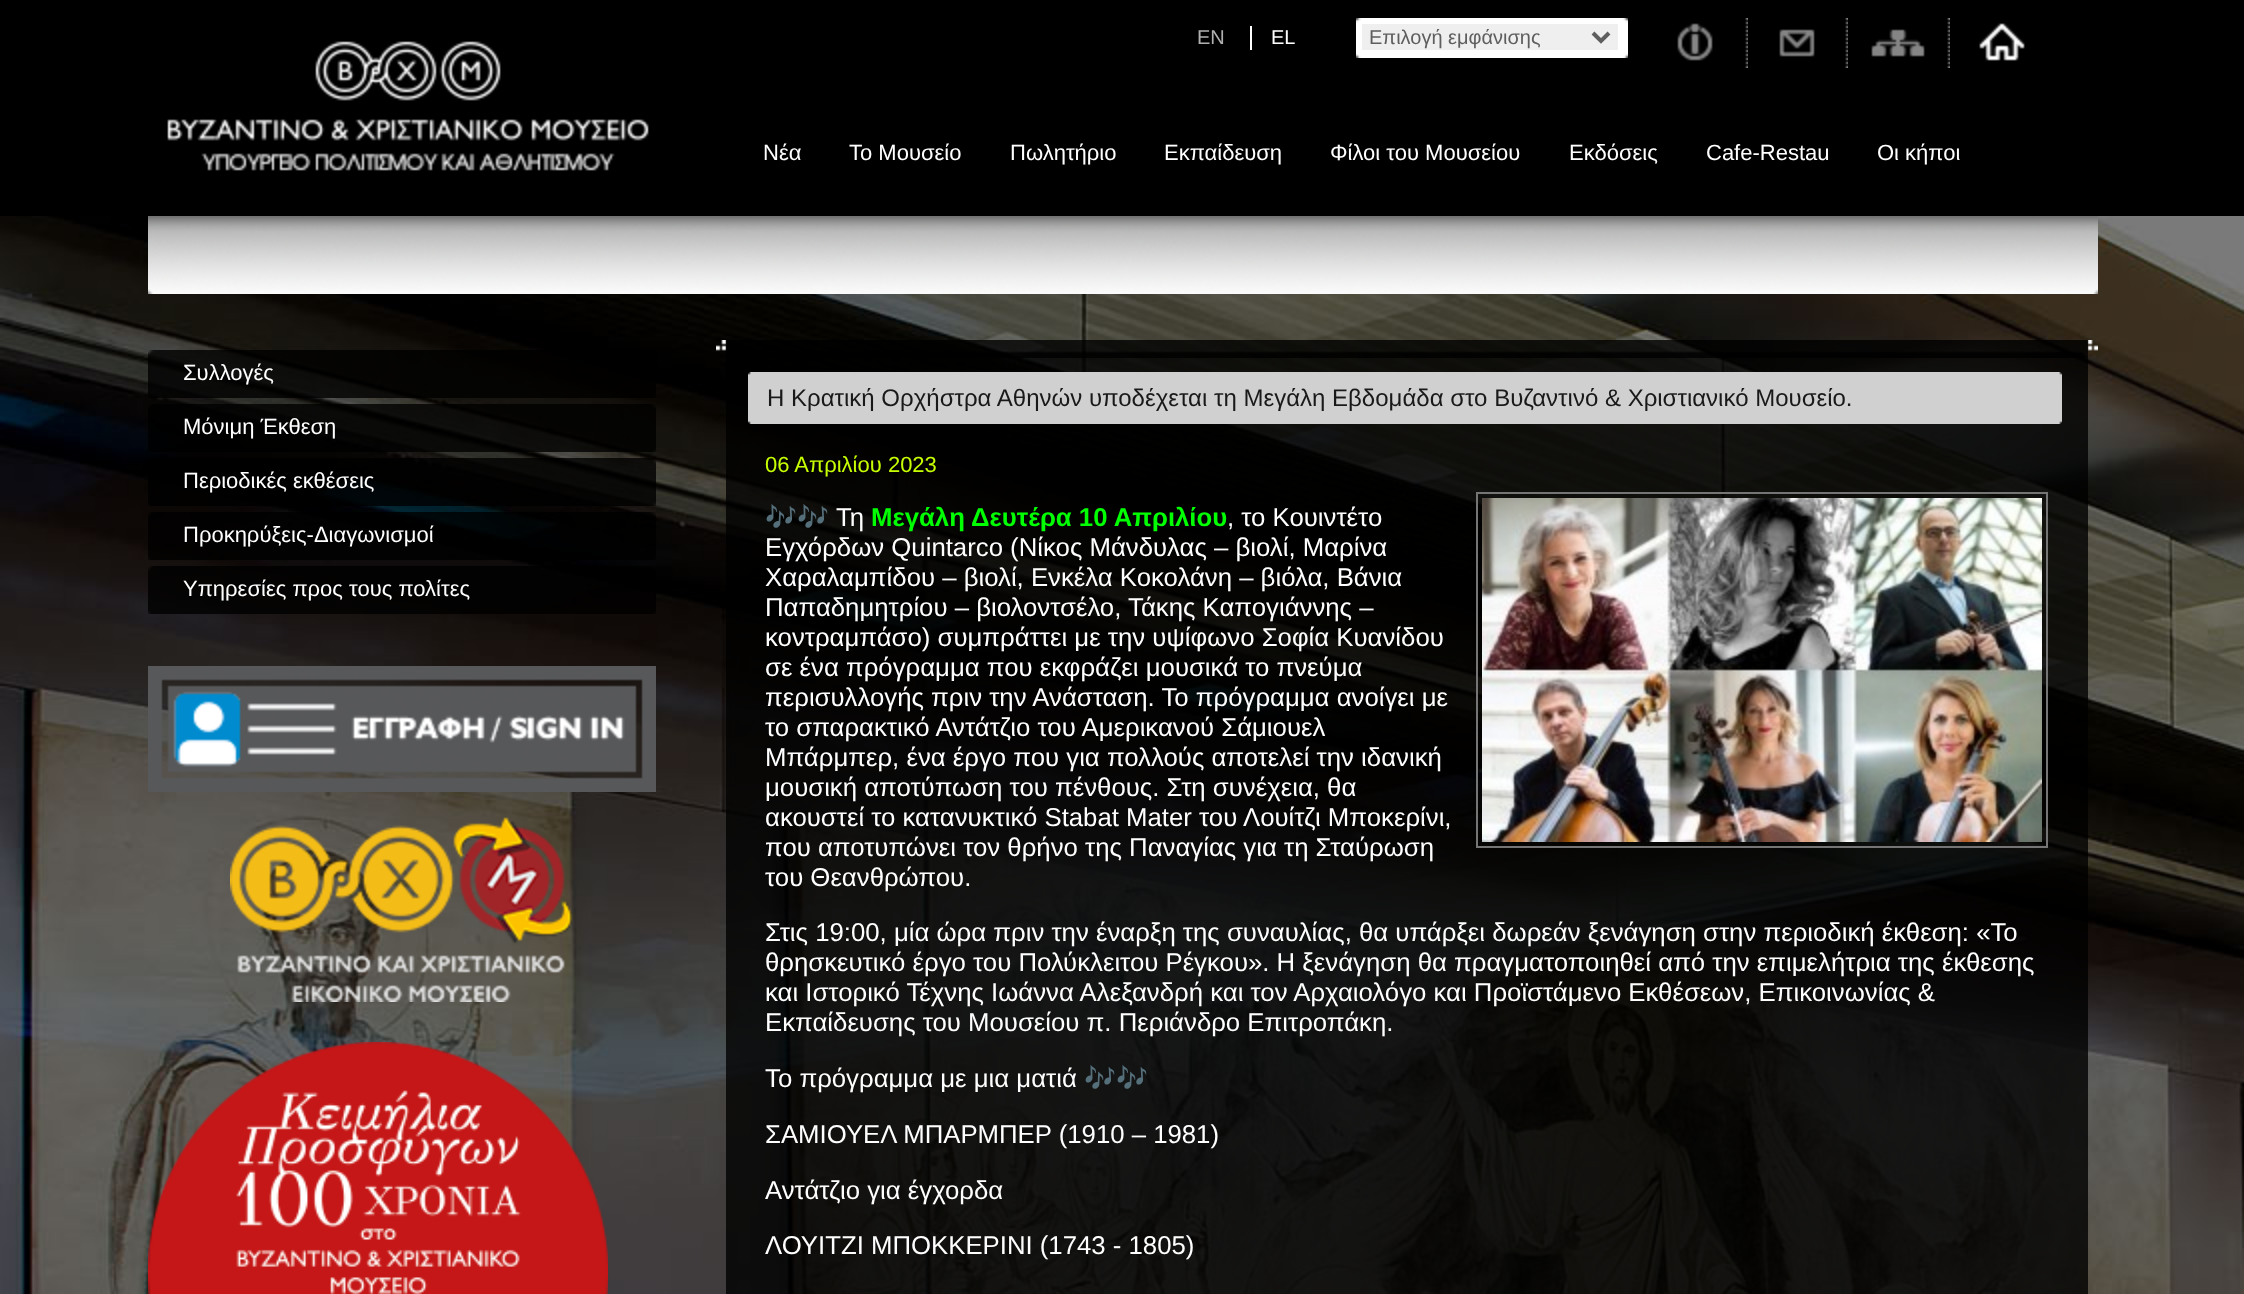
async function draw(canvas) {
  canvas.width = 2244;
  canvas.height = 1294;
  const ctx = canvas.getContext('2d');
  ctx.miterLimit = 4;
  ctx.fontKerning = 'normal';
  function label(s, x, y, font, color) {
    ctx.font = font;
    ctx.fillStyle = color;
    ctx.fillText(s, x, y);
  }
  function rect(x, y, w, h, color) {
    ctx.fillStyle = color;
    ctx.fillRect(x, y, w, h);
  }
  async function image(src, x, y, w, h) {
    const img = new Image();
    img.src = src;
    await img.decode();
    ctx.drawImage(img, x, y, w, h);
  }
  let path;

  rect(0, 0, 2244, 1294, '#fff');
  await image('assets/img1.png', 0, 216, 2244, 1078);
  rect(0, 0, 2244, 216, '#000');
  rect(1250, 26, 2, 24, '#fff');
  label('EN', 1197, 44, '20px Liberation Sans', '#b0b0b0');
  label('EL', 1271, 44, '20px Liberation Sans', '#fff');
  await image('assets/img2.png', 1356, 18, 272, 40);
  rect(1362, 24, 256, 26, '#efefef');
  path = new Path2D('M1593 33L1601 41L1609 33');
  ctx.strokeStyle = '#5e5e5e';
  ctx.lineWidth = 4;
  ctx.stroke(path);
  label('Επιλογή εμφάνισης', 1369, 44, '20px Liberation Sans', '#5e5e5e');
  await image('assets/img3.png', 1677, 18, 71, 50);
  await image('assets/img4.png', 1779, 18, 69, 50);
  await image('assets/img5.png', 1871, 18, 79, 50);
  await image('assets/img6.png', 1979, 23, 46, 38);
  await image('assets/img7.png', 167, 41, 482, 130);
  label('Νέα', 763, 160, '22px Liberation Sans', '#fff');
  label('Το Μουσείο', 849, 160, '22px Liberation Sans', '#fff');
  label('Πωλητήριο', 1010, 160, '22px Liberation Sans', '#fff');
  label('Εκπαίδευση', 1164, 160, '22px Liberation Sans', '#fff');
  label('Φίλοι του Μουσείου', 1330, 160, '22px Liberation Sans', '#fff');
  label('Εκδόσεις', 1569, 160, '22px Liberation Sans', '#fff');
  label('Cafe-Restau', 1706, 160, '22px Liberation Sans', '#fff');
  label('Οι κήποι', 1877, 160, '22px Liberation Sans', '#fff');
  await image('assets/img8.png', 148, 216, 1950, 78);
  await image('assets/img9.png', 148, 350, 508, 48);
  label('Συλλογές', 183, 380, '22px Liberation Sans', '#fff');
  await image('assets/img10.png', 148, 404, 508, 48);
  label('Μόνιμη Έκθεση', 183, 434, '22px Liberation Sans', '#fff');
  await image('assets/img11.png', 148, 458, 508, 48);
  label('Περιοδικές εκθέσεις', 183, 488, '22px Liberation Sans', '#fff');
  await image('assets/img12.png', 148, 512, 508, 48);
  label('Προκηρύξεις-Διαγωνισμοί', 183, 542, '22px Liberation Sans', '#fff');
  await image('assets/img13.png', 148, 566, 508, 48);
  label('Υπηρεσίες προς τους πολίτες', 183, 596, '22px Liberation Sans', '#fff');
  await image('assets/img14.png', 148, 666, 508, 126);
  await image('assets/img15.png', 230, 817, 342, 185);
  await image('assets/img16.png', 148, 1042, 460, 252);
  await image('assets/img17.png', 716, 340, 1382, 18);
  rect(726, 340, 1362, 954, '#000000c9');
  await image('assets/img18.png', 748, 372, 1314, 4);
  await image('assets/img19.png', 748, 376, 1314, 48);
  label('Η Κρατική Ορχήστρα Αθηνών υποδέχεται τη Μεγάλη Εβδομάδα στο Βυζαντινό & Χριστιανικό Μουσείο.', 767, 406, '24px Liberation Sans', '#191919');
  label('06 Απριλίου 2023', 765, 472, '22px Liberation Sans', '#c7ff00');
  label('🎶🎶', 765, 526, '25.75px Noto Color Emoji', '#fff');
  label('Τη', 836, 526, '25.75px Liberation Sans', '#fff');
  label('Μεγάλη Δευτέρα 10 Απριλίου', 871, 526, 'bold 25.75px Liberation Sans', '#0f0');
  label(', το Κουιντέτο', 1227, 526, '25.75px Liberation Sans', '#fff');
  label('Εγχόρδων Quintarco (Νίκος Μάνδυλας – βιολί, Μαρίνα', 765, 556, '25.75px Liberation Sans', '#fff');
  label('Χαραλαμπίδου – βιολί, Ενκέλα Κοκολάνη – βιόλα, Βάνια', 765, 586, '25.75px Liberation Sans', '#fff');
  label('Παπαδημητρίου – βιολοντσέλο, Τάκης Καπογιάννης –', 765, 616, '25.75px Liberation Sans', '#fff');
  label('κοντραμπάσο) συμπράττει με την υψίφωνο Σοφία Κυανίδου', 765, 646, '25.75px Liberation Sans', '#fff');
  label('σε ένα πρόγραμμα που εκφράζει μουσικά το πνεύμα', 765, 676, '25.75px Liberation Sans', '#fff');
  label('περισυλλογής πριν την Ανάσταση. Το πρόγραμμα ανοίγει με', 765, 706, '25.75px Liberation Sans', '#fff');
  label('το σπαρακτικό Αντάτζιο του Αμερικανού Σάμιουελ', 765, 736, '25.75px Liberation Sans', '#fff');
  label('Μπάρμπερ, ένα έργο που για πολλούς αποτελεί την ιδανική', 765, 766, '25.75px Liberation Sans', '#fff');
  label('μουσική αποτύπωση του πένθους. Στη συνέχεια, θα', 765, 796, '25.75px Liberation Sans', '#fff');
  label('ακουστεί το κατανυκτικό Stabat Mater του Λουίτζι Μποκερίνι,', 765, 826, '25.75px Liberation Sans', '#fff');
  label('που αποτυπώνει τον θρήνο της Παναγίας για τη Σταύρωση', 765, 856, '25.75px Liberation Sans', '#fff');
  label('του Θεανθρώπου.', 765, 886, '25.75px Liberation Sans', '#fff');
  ctx.strokeStyle = '#757575';
  ctx.lineWidth = 2;
  ctx.strokeRect(1477, 493, 570, 354);
  await image('assets/img20.png', 1482, 498, 560, 344);
  label('Στις 19:00, μία ώρα πριν την έναρξη της συναυλίας, θα υπάρξει δωρεάν ξενάγηση στην περιοδική έκθεση: «Το', 765, 941, '25.75px Liberation Sans', '#fff');
  label('θρησκευτικό έργο του Πολύκλειτου Ρέγκου». Η ξενάγηση θα πραγματοποιηθεί από την επιμελήτρια της έκθεσης', 765, 971, '25.75px Liberation Sans', '#fff');
  label('και Ιστορικό Τέχνης Ιωάννα Αλεξανδρή και τον Αρχαιολόγο και Προϊστάμενο Εκθέσεων, Επικοινωνίας &', 765, 1001, '25.75px Liberation Sans', '#fff');
  label('Εκπαίδευσης του Μουσείου π. Περιάνδρο Επιτροπάκη.', 765, 1031, '25.75px Liberation Sans', '#fff');
  label('Το πρόγραμμα με μια ματιά', 765, 1087, '25.75px Liberation Sans', '#fff');
  label('🎶🎶', 1084, 1087, '25.75px Noto Color Emoji', '#fff');
  label('ΣΑΜΙΟΥΕΛ ΜΠΑΡΜΠΕΡ (1910 – 1981)', 765, 1143, '25.75px Liberation Sans', '#fff');
  label('Αντάτζιο για έγχορδα', 765, 1199, '25.75px Liberation Sans', '#fff');
  label('ΛΟΥΙΤΖΙ ΜΠΟΚΚΕΡΙΝΙ (1743 - 1805)', 765, 1254, '25.75px Liberation Sans', '#fff');
}

draw(document.querySelector('canvas'));
